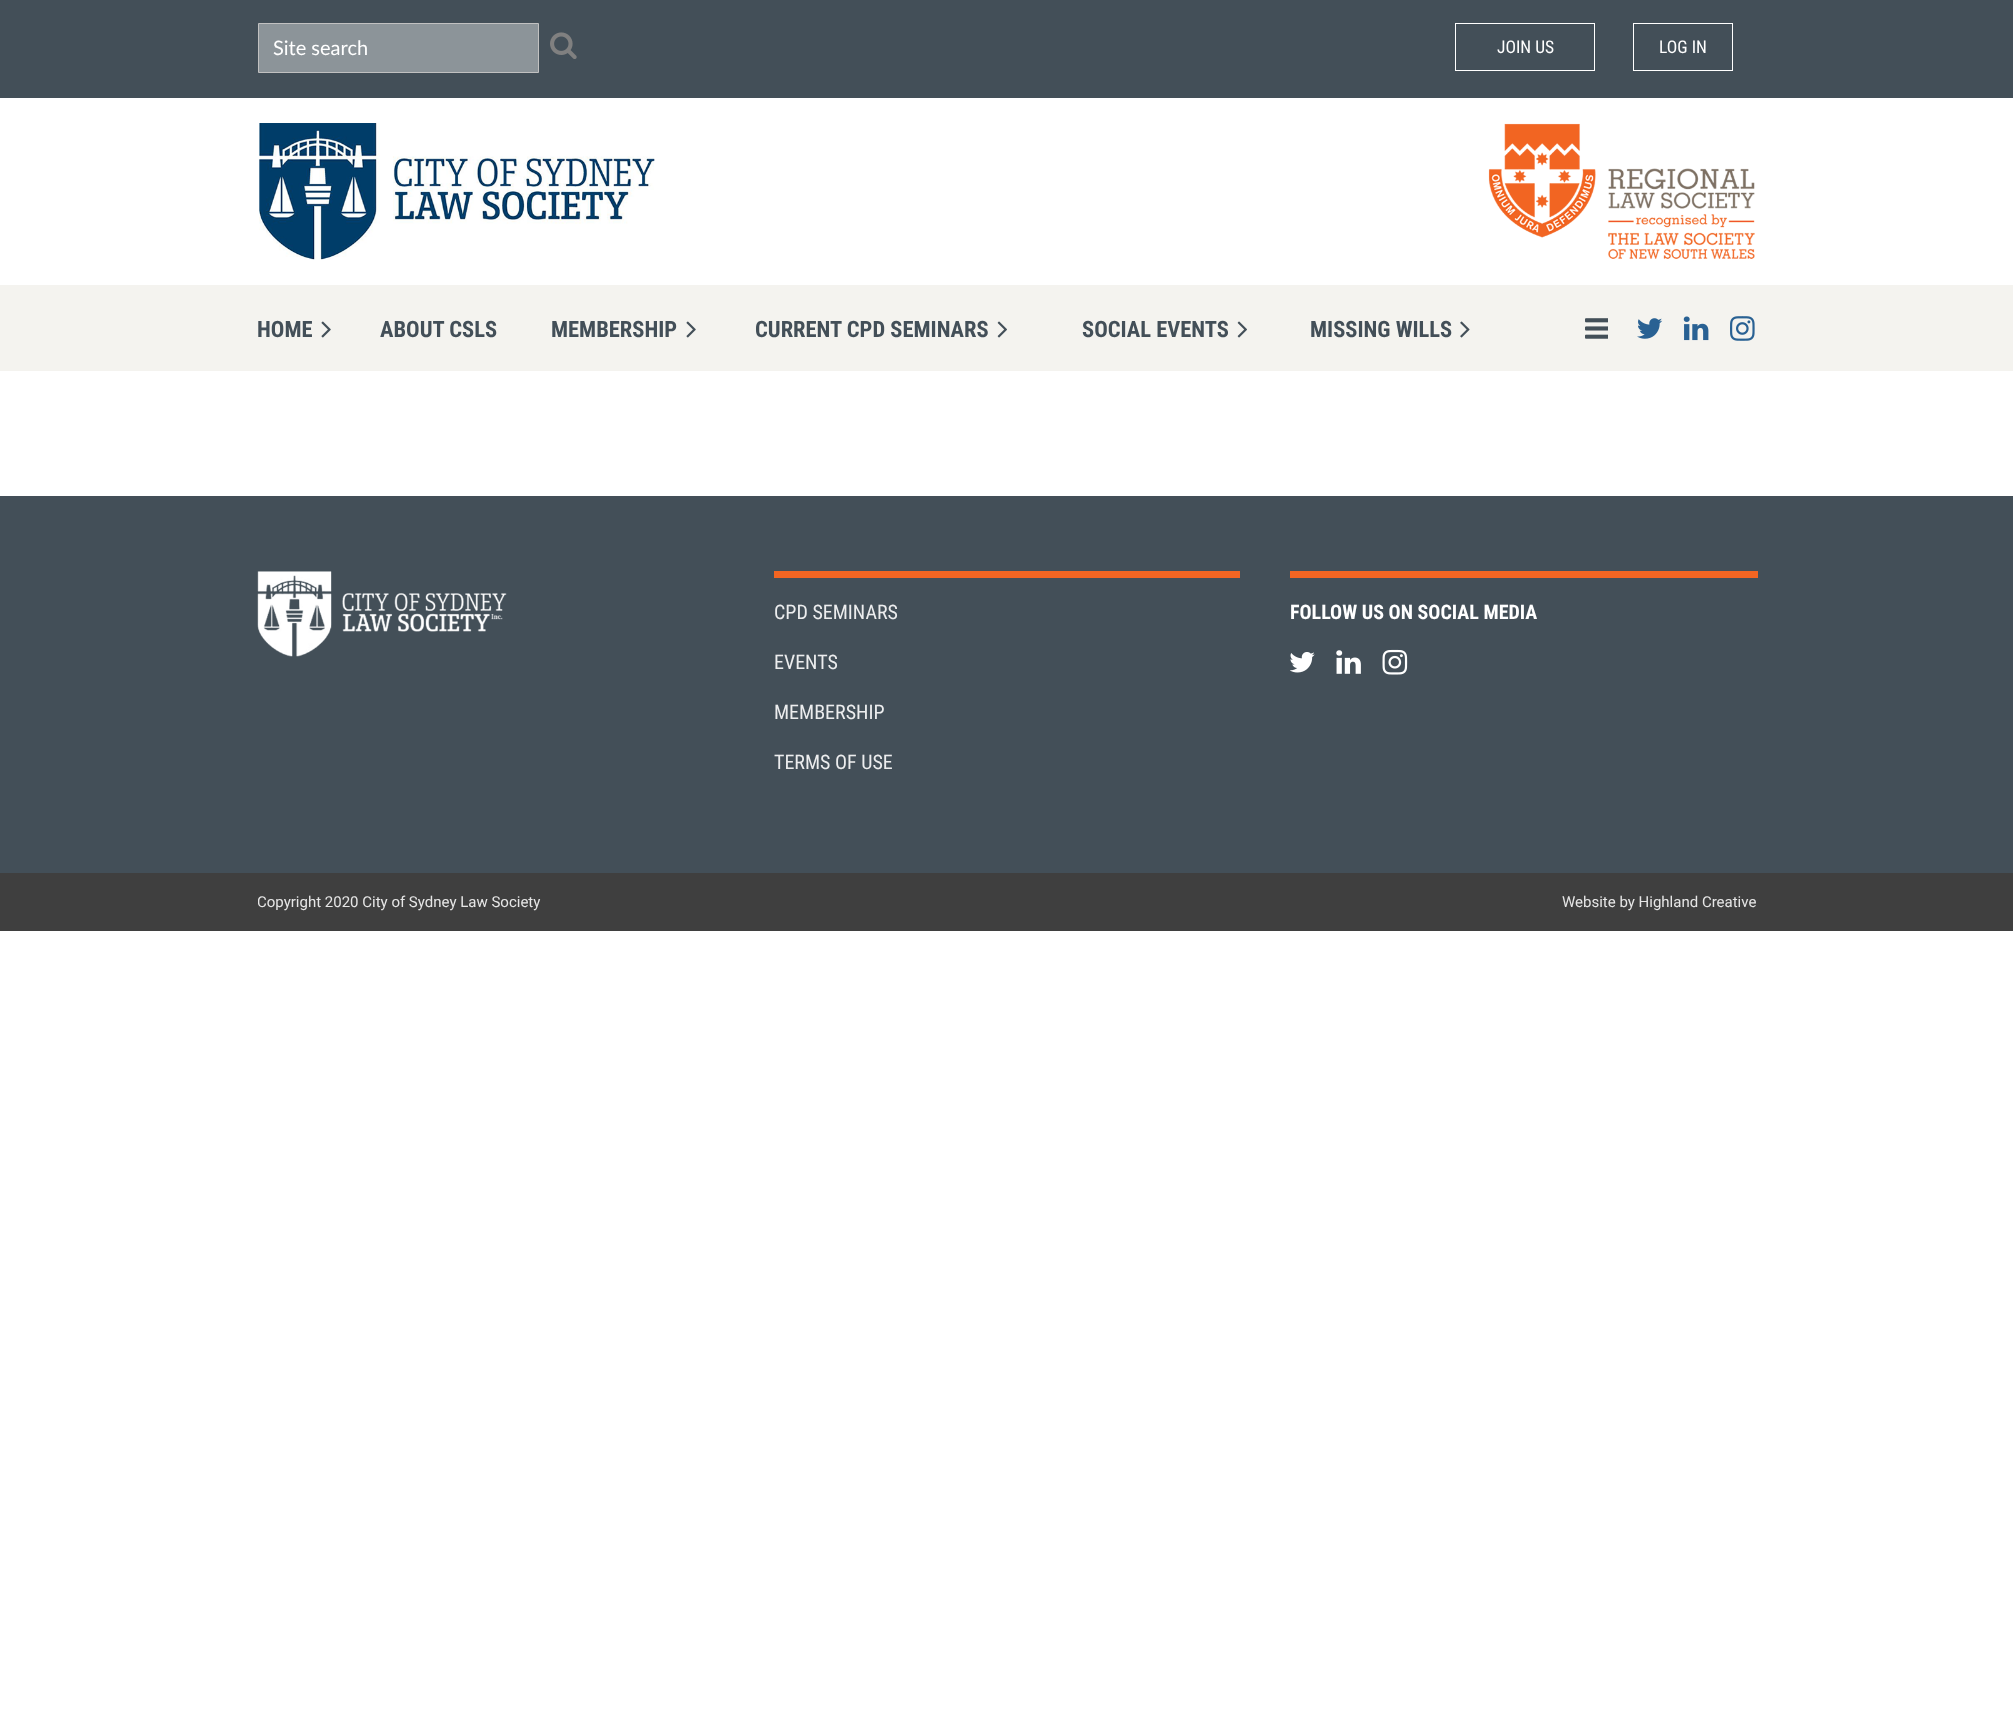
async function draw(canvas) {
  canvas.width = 2013;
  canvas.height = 1729;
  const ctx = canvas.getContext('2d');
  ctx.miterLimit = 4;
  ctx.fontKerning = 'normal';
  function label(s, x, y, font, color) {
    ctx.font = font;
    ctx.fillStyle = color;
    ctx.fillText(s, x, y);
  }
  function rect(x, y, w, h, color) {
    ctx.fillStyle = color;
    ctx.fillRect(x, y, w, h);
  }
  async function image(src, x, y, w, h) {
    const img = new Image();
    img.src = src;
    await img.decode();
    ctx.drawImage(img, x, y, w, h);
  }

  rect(0, 0, 2013, 1729, '#fff');
  rect(0, 0, 2013, 98, '#434f58');
  ctx.fillStyle = '#8c9499';
  ctx.beginPath();
  ctx.rect(258.5, 23.5, 280, 49);
  ctx.fill();
  ctx.strokeStyle = '#c1c1c1';
  ctx.stroke();
  label('Site search', 273, 55, '20px Lato', '#fff');
  await image('assets/img1.png', 550, 32, 27, 27);
  ctx.strokeStyle = '#fff';
  ctx.strokeRect(1455.5, 23.5, 139, 47);
  label('JOIN US', 1497, 53, '17.5px Roboto Condensed', '#fff');
  ctx.strokeRect(1633.5, 23.5, 99, 47);
  label('LOG IN', 1659, 53, '17.5px Roboto Condensed', '#fff');
  await image('assets/img2.png', 259, 123, 396, 137);
  await image('assets/img3.png', 1488, 123, 267, 136);
  rect(0, 285, 2013, 86, '#f4f3ef');
  label('HOME', 257, 337, 'bold 22.5px Roboto Condensed', '#434f58');
  await image('assets/img4.png', 321, 321, 10, 17);
  label('ABOUT CSLS', 380, 337, 'bold 22.5px Roboto Condensed', '#434f58');
  label('MEMBERSHIP', 551, 337, 'bold 22.5px Roboto Condensed', '#434f58');
  await image('assets/img4.png', 686, 321, 10, 17);
  label('CURRENT CPD SEMINARS', 755, 337, 'bold 22.5px Roboto Condensed', '#434f58');
  await image('assets/img5.png', 997, 321, 10, 17);
  label('SOCIAL EVENTS', 1082, 337, 'bold 22.5px Roboto Condensed', '#434f58');
  await image('assets/img5.png', 1237, 321, 10, 17);
  label('MISSING WILLS', 1310, 337, 'bold 22.5px Roboto Condensed', '#434f58');
  await image('assets/img6.png', 1460, 321, 10, 17);
  await image('assets/img7.png', 1585, 318, 23, 21);
  await image('assets/img8.png', 1637, 318, 26, 21);
  await image('assets/img9.png', 1683, 316, 26, 25);
  await image('assets/img10.png', 1730, 316, 25, 25);
  rect(0, 496, 2013, 377, '#434f58');
  await image('assets/img11.png', 257, 571, 250, 86);
  rect(774, 571, 466, 7, '#f26522');
  label('CPD SEMINARS', 774, 619, '20px Roboto Condensed', '#ecedee');
  label('EVENTS', 774, 669, '20px Roboto Condensed', '#ecedee');
  label('MEMBERSHIP', 774, 719, '20px Roboto Condensed', '#ecedee');
  label('TERMS OF USE', 774, 769, '20px Roboto Condensed', '#ecedee');
  rect(1290, 571, 468, 7, '#f26522');
  label('FOLLOW US ON SOCIAL MEDIA', 1290, 619, 'bold 20px Roboto Condensed', '#fff');
  await image('assets/img12.png', 1290, 652, 25, 21);
  await image('assets/img13.png', 1336, 650, 25, 24);
  await image('assets/img14.png', 1382, 649, 26, 26);
  rect(0, 873, 2013, 58, '#3f3f3f');
  ctx.save();
  ctx.beginPath();
  ctx.rect(258, 885, 750, 30);
  ctx.clip();
  label('Copyright 2020 City of Sydney Law Society', 257, 907, '15px Roboto', '#e6e6e6');
  ctx.restore();
  label('Website by Highland Creative', 1562, 907, '15px Roboto', '#e6e6e6');
}

draw(document.querySelector('canvas'));
